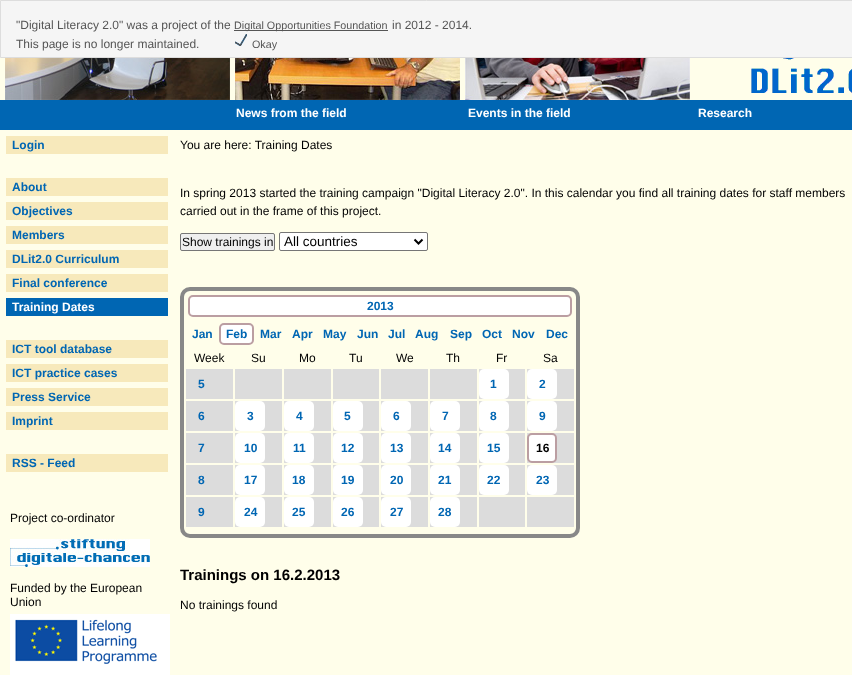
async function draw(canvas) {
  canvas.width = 852;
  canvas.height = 675;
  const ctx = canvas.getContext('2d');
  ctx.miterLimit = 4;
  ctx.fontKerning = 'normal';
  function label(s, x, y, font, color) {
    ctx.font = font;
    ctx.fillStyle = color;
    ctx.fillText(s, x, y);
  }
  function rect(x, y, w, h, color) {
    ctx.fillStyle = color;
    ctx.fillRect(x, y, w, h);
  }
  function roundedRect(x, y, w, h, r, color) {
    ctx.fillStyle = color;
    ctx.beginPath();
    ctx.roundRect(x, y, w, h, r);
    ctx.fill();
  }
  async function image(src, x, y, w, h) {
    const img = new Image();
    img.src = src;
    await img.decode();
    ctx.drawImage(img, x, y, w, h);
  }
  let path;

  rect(0, 0, 852, 675, '#fffeea');
  ctx.fillStyle = '#f5f5f5';
  ctx.beginPath();
  ctx.rect(0.5, 0.5, 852, 57);
  ctx.fill();
  ctx.strokeStyle = '#ddd';
  ctx.stroke();
  label('"Digital Literacy 2.0" was a project of the', 16, 29, '12px Liberation Sans', '#555');
  rect(234, 30, 154, 1, '#555');
  label('Digital Opportunities Foundation', 234, 29, '10.75px Liberation Sans', '#555');
  label('in 2012 - 2014.', 392, 29, '12px Liberation Sans', '#555');
  label('This page is no longer maintained.', 16, 48, '12px Liberation Sans', '#555');
  await image('assets/img1.png', 235, 34, 12, 12);
  label('Okay', 252, 48, '10.75px Liberation Sans', '#555');
  await image('assets/img2.png', 5, 58, 225, 42);
  await image('assets/img3.png', 235, 58, 225, 42);
  await image('assets/img4.png', 465, 58, 225, 42);
  await image('assets/img5.png', 751, 58, 101, 35);
  rect(0, 100, 852, 30, '#0066b3');
  label('News from the field', 236, 117, 'bold 12px Liberation Sans', '#fff');
  label('Events in the field', 468, 117, 'bold 12px Liberation Sans', '#fff');
  label('Research', 698, 117, 'bold 12px Liberation Sans', '#fff');
  rect(6, 136, 162, 18, '#f7e9bb');
  label('Login', 12, 149, 'bold 12px Liberation Sans', '#0066b3');
  rect(6, 178, 162, 18, '#f7e9bb');
  label('About', 12, 191, 'bold 12px Liberation Sans', '#0066b3');
  rect(6, 202, 162, 18, '#f7e9bb');
  label('Objectives', 12, 215, 'bold 12px Liberation Sans', '#0066b3');
  rect(6, 226, 162, 18, '#f7e9bb');
  label('Members', 12, 239, 'bold 12px Liberation Sans', '#0066b3');
  rect(6, 250, 162, 18, '#f7e9bb');
  label('DLit2.0 Curriculum', 12, 263, 'bold 12px Liberation Sans', '#0066b3');
  rect(6, 274, 162, 18, '#f7e9bb');
  label('Final conference', 12, 287, 'bold 12px Liberation Sans', '#0066b3');
  rect(6, 298, 162, 18, '#0066b3');
  label('Training Dates', 12, 311, 'bold 12px Liberation Sans', '#fff');
  rect(6, 340, 162, 18, '#f7e9bb');
  label('ICT tool database', 12, 353, 'bold 12px Liberation Sans', '#0066b3');
  rect(6, 364, 162, 18, '#f7e9bb');
  label('ICT practice cases', 12, 377, 'bold 12px Liberation Sans', '#0066b3');
  rect(6, 388, 162, 18, '#f7e9bb');
  label('Press Service', 12, 401, 'bold 12px Liberation Sans', '#0066b3');
  rect(6, 412, 162, 18, '#f7e9bb');
  label('Imprint', 12, 425, 'bold 12px Liberation Sans', '#0066b3');
  rect(6, 454, 162, 18, '#f7e9bb');
  label('RSS - Feed', 12, 467, 'bold 12px Liberation Sans', '#0066b3');
  label('Project co-ordinator', 10, 522, '12px Liberation Sans', '#000');
  await image('assets/img6.png', 10, 539, 140, 28);
  label('Funded by the European', 10, 592, '12px Liberation Sans', '#000');
  label('Union', 10, 606, '12px Liberation Sans', '#000');
  await image('assets/img7.png', 10, 614, 160, 61);
  label('You are here: Training Dates', 180, 149, '12px Liberation Sans', '#000');
  label('In spring 2013 started the training campaign "Digital Literacy 2.0". In this calendar you find all training dates for staff members', 180, 197, '12px Liberation Sans', '#000');
  label('carried out in the frame of this project.', 180, 215, '12px Liberation Sans', '#000');
  ctx.fillStyle = '#efefef';
  ctx.beginPath();
  ctx.roundRect(180.5, 233.5, 94, 17, 1.5);
  ctx.fill();
  ctx.strokeStyle = '#767676';
  ctx.stroke();
  label('Show trainings in', 182, 246, '12px Liberation Sans', '#000');
  ctx.fillStyle = '#fff';
  ctx.beginPath();
  ctx.roundRect(279.5, 232.5, 148, 18, 1.5);
  ctx.fill();
  ctx.stroke();
  path = new Path2D('M414.5 239.5L418.5 243.5L422.5 239.5');
  ctx.strokeStyle = '#000';
  ctx.lineWidth = 2;
  ctx.stroke(path);
  label('All countries', 284, 246, '13.5px Liberation Sans', '#000');
  ctx.beginPath();
  ctx.roundRect(182, 289, 396, 247, 8);
  ctx.strokeStyle = '#888';
  ctx.lineWidth = 4;
  ctx.stroke();
  ctx.fillStyle = '#fff';
  ctx.beginPath();
  ctx.roundRect(189, 296, 382, 20, 4);
  ctx.fill();
  ctx.strokeStyle = '#bb9ea2';
  ctx.lineWidth = 2;
  ctx.stroke();
  label('2013', 367, 310, 'bold 12px Liberation Sans', '#0066b3');
  label('Jan', 192, 338, 'bold 12px Liberation Sans', '#0066b3');
  ctx.fillStyle = '#fff';
  ctx.beginPath();
  ctx.roundRect(220, 324, 33, 20, 4);
  ctx.fill();
  ctx.stroke();
  label('Feb', 226, 338, 'bold 12px Liberation Sans', '#0066b3');
  label('Mar', 260, 338, 'bold 12px Liberation Sans', '#0066b3');
  label('Apr', 292, 338, 'bold 12px Liberation Sans', '#0066b3');
  label('May', 323, 338, 'bold 12px Liberation Sans', '#0066b3');
  label('Jun', 357, 338, 'bold 12px Liberation Sans', '#0066b3');
  label('Jul', 388, 338, 'bold 12px Liberation Sans', '#0066b3');
  label('Aug', 415, 338, 'bold 12px Liberation Sans', '#0066b3');
  label('Sep', 450, 338, 'bold 12px Liberation Sans', '#0066b3');
  label('Oct', 482, 338, 'bold 12px Liberation Sans', '#0066b3');
  label('Nov', 512, 338, 'bold 12px Liberation Sans', '#0066b3');
  label('Dec', 546, 338, 'bold 12px Liberation Sans', '#0066b3');
  label('Week', 194, 362, '12px Liberation Sans', '#000');
  label('Su', 251, 362, '12px Liberation Sans', '#000');
  label('Mo', 299, 362, '12px Liberation Sans', '#000');
  label('Tu', 349, 362, '12px Liberation Sans', '#000');
  label('We', 396, 362, '12px Liberation Sans', '#000');
  label('Th', 446, 362, '12px Liberation Sans', '#000');
  label('Fr', 496, 362, '12px Liberation Sans', '#000');
  label('Sa', 543, 362, '12px Liberation Sans', '#000');
  rect(186, 369, 47, 30, '#dcdcdc');
  label('5', 198, 388, 'bold 12px Liberation Sans', '#0066b3');
  rect(235, 369, 47, 30, '#dcdcdc');
  rect(284, 369, 47, 30, '#dcdcdc');
  rect(333, 369, 46, 30, '#dcdcdc');
  rect(381, 369, 47, 30, '#dcdcdc');
  rect(430, 369, 47, 30, '#dcdcdc');
  rect(479, 369, 46, 30, '#dcdcdc');
  roundedRect(479, 369, 30, 30, 5, '#fff');
  label('1', 490, 388, 'bold 12px Liberation Sans', '#0066b3');
  rect(527, 369, 47, 30, '#dcdcdc');
  roundedRect(527, 369, 30, 30, 5, '#fff');
  label('2', 539, 388, 'bold 12px Liberation Sans', '#0066b3');
  rect(186, 401, 47, 30, '#dcdcdc');
  label('6', 198, 420, 'bold 12px Liberation Sans', '#0066b3');
  rect(235, 401, 47, 30, '#dcdcdc');
  roundedRect(235, 401, 30, 30, 5, '#fff');
  label('3', 247, 420, 'bold 12px Liberation Sans', '#0066b3');
  rect(284, 401, 47, 30, '#dcdcdc');
  roundedRect(284, 401, 30, 30, 5, '#fff');
  label('4', 296, 420, 'bold 12px Liberation Sans', '#0066b3');
  rect(333, 401, 46, 30, '#dcdcdc');
  roundedRect(333, 401, 30, 30, 5, '#fff');
  label('5', 344, 420, 'bold 12px Liberation Sans', '#0066b3');
  rect(381, 401, 47, 30, '#dcdcdc');
  roundedRect(381, 401, 30, 30, 5, '#fff');
  label('6', 393, 420, 'bold 12px Liberation Sans', '#0066b3');
  rect(430, 401, 47, 30, '#dcdcdc');
  roundedRect(430, 401, 30, 30, 5, '#fff');
  label('7', 442, 420, 'bold 12px Liberation Sans', '#0066b3');
  rect(479, 401, 46, 30, '#dcdcdc');
  roundedRect(479, 401, 30, 30, 5, '#fff');
  label('8', 490, 420, 'bold 12px Liberation Sans', '#0066b3');
  rect(527, 401, 47, 30, '#dcdcdc');
  roundedRect(527, 401, 30, 30, 5, '#fff');
  label('9', 539, 420, 'bold 12px Liberation Sans', '#0066b3');
  rect(186, 433, 47, 30, '#dcdcdc');
  label('7', 198, 452, 'bold 12px Liberation Sans', '#0066b3');
  rect(235, 433, 47, 30, '#dcdcdc');
  roundedRect(235, 433, 30, 30, 5, '#fff');
  label('10', 244, 452, 'bold 12px Liberation Sans', '#0066b3');
  rect(284, 433, 47, 30, '#dcdcdc');
  roundedRect(284, 433, 30, 30, 5, '#fff');
  label('11', 293, 452, 'bold 12px Liberation Sans', '#0066b3');
  rect(333, 433, 46, 30, '#dcdcdc');
  roundedRect(333, 433, 30, 30, 5, '#fff');
  label('12', 341, 452, 'bold 12px Liberation Sans', '#0066b3');
  rect(381, 433, 47, 30, '#dcdcdc');
  roundedRect(381, 433, 30, 30, 5, '#fff');
  label('13', 390, 452, 'bold 12px Liberation Sans', '#0066b3');
  rect(430, 433, 47, 30, '#dcdcdc');
  roundedRect(430, 433, 30, 30, 5, '#fff');
  label('14', 438, 452, 'bold 12px Liberation Sans', '#0066b3');
  rect(479, 433, 46, 30, '#dcdcdc');
  roundedRect(479, 433, 30, 30, 5, '#fff');
  label('15', 487, 452, 'bold 12px Liberation Sans', '#0066b3');
  rect(527, 433, 47, 30, '#dcdcdc');
  ctx.fillStyle = '#fff';
  ctx.beginPath();
  ctx.roundRect(528, 434, 28, 28, 4);
  ctx.fill();
  ctx.stroke();
  label('16', 536, 452, 'bold 12px Liberation Sans', '#000');
  rect(186, 465, 47, 30, '#dcdcdc');
  label('8', 198, 484, 'bold 12px Liberation Sans', '#0066b3');
  rect(235, 465, 47, 30, '#dcdcdc');
  roundedRect(235, 465, 30, 30, 5, '#fff');
  label('17', 244, 484, 'bold 12px Liberation Sans', '#0066b3');
  rect(284, 465, 47, 30, '#dcdcdc');
  roundedRect(284, 465, 30, 30, 5, '#fff');
  label('18', 292, 484, 'bold 12px Liberation Sans', '#0066b3');
  rect(333, 465, 46, 30, '#dcdcdc');
  roundedRect(333, 465, 30, 30, 5, '#fff');
  label('19', 341, 484, 'bold 12px Liberation Sans', '#0066b3');
  rect(381, 465, 47, 30, '#dcdcdc');
  roundedRect(381, 465, 30, 30, 5, '#fff');
  label('20', 390, 484, 'bold 12px Liberation Sans', '#0066b3');
  rect(430, 465, 47, 30, '#dcdcdc');
  roundedRect(430, 465, 30, 30, 5, '#fff');
  label('21', 438, 484, 'bold 12px Liberation Sans', '#0066b3');
  rect(479, 465, 46, 30, '#dcdcdc');
  roundedRect(479, 465, 30, 30, 5, '#fff');
  label('22', 487, 484, 'bold 12px Liberation Sans', '#0066b3');
  rect(527, 465, 47, 30, '#dcdcdc');
  roundedRect(527, 465, 30, 30, 5, '#fff');
  label('23', 536, 484, 'bold 12px Liberation Sans', '#0066b3');
  rect(186, 497, 47, 30, '#dcdcdc');
  label('9', 198, 516, 'bold 12px Liberation Sans', '#0066b3');
  rect(235, 497, 47, 30, '#dcdcdc');
  roundedRect(235, 497, 30, 30, 5, '#fff');
  label('24', 244, 516, 'bold 12px Liberation Sans', '#0066b3');
  rect(284, 497, 47, 30, '#dcdcdc');
  roundedRect(284, 497, 30, 30, 5, '#fff');
  label('25', 292, 516, 'bold 12px Liberation Sans', '#0066b3');
  rect(333, 497, 46, 30, '#dcdcdc');
  roundedRect(333, 497, 30, 30, 5, '#fff');
  label('26', 341, 516, 'bold 12px Liberation Sans', '#0066b3');
  rect(381, 497, 47, 30, '#dcdcdc');
  roundedRect(381, 497, 30, 30, 5, '#fff');
  label('27', 390, 516, 'bold 12px Liberation Sans', '#0066b3');
  rect(430, 497, 47, 30, '#dcdcdc');
  roundedRect(430, 497, 30, 30, 5, '#fff');
  label('28', 438, 516, 'bold 12px Liberation Sans', '#0066b3');
  rect(479, 497, 46, 30, '#dcdcdc');
  rect(527, 497, 47, 30, '#dcdcdc');
  label('Trainings on 16.2.2013', 180, 580, 'bold 15px Liberation Sans', '#000');
  label('No trainings found', 180, 609, '12px Liberation Sans', '#000');
}

draw(document.querySelector('canvas'));
